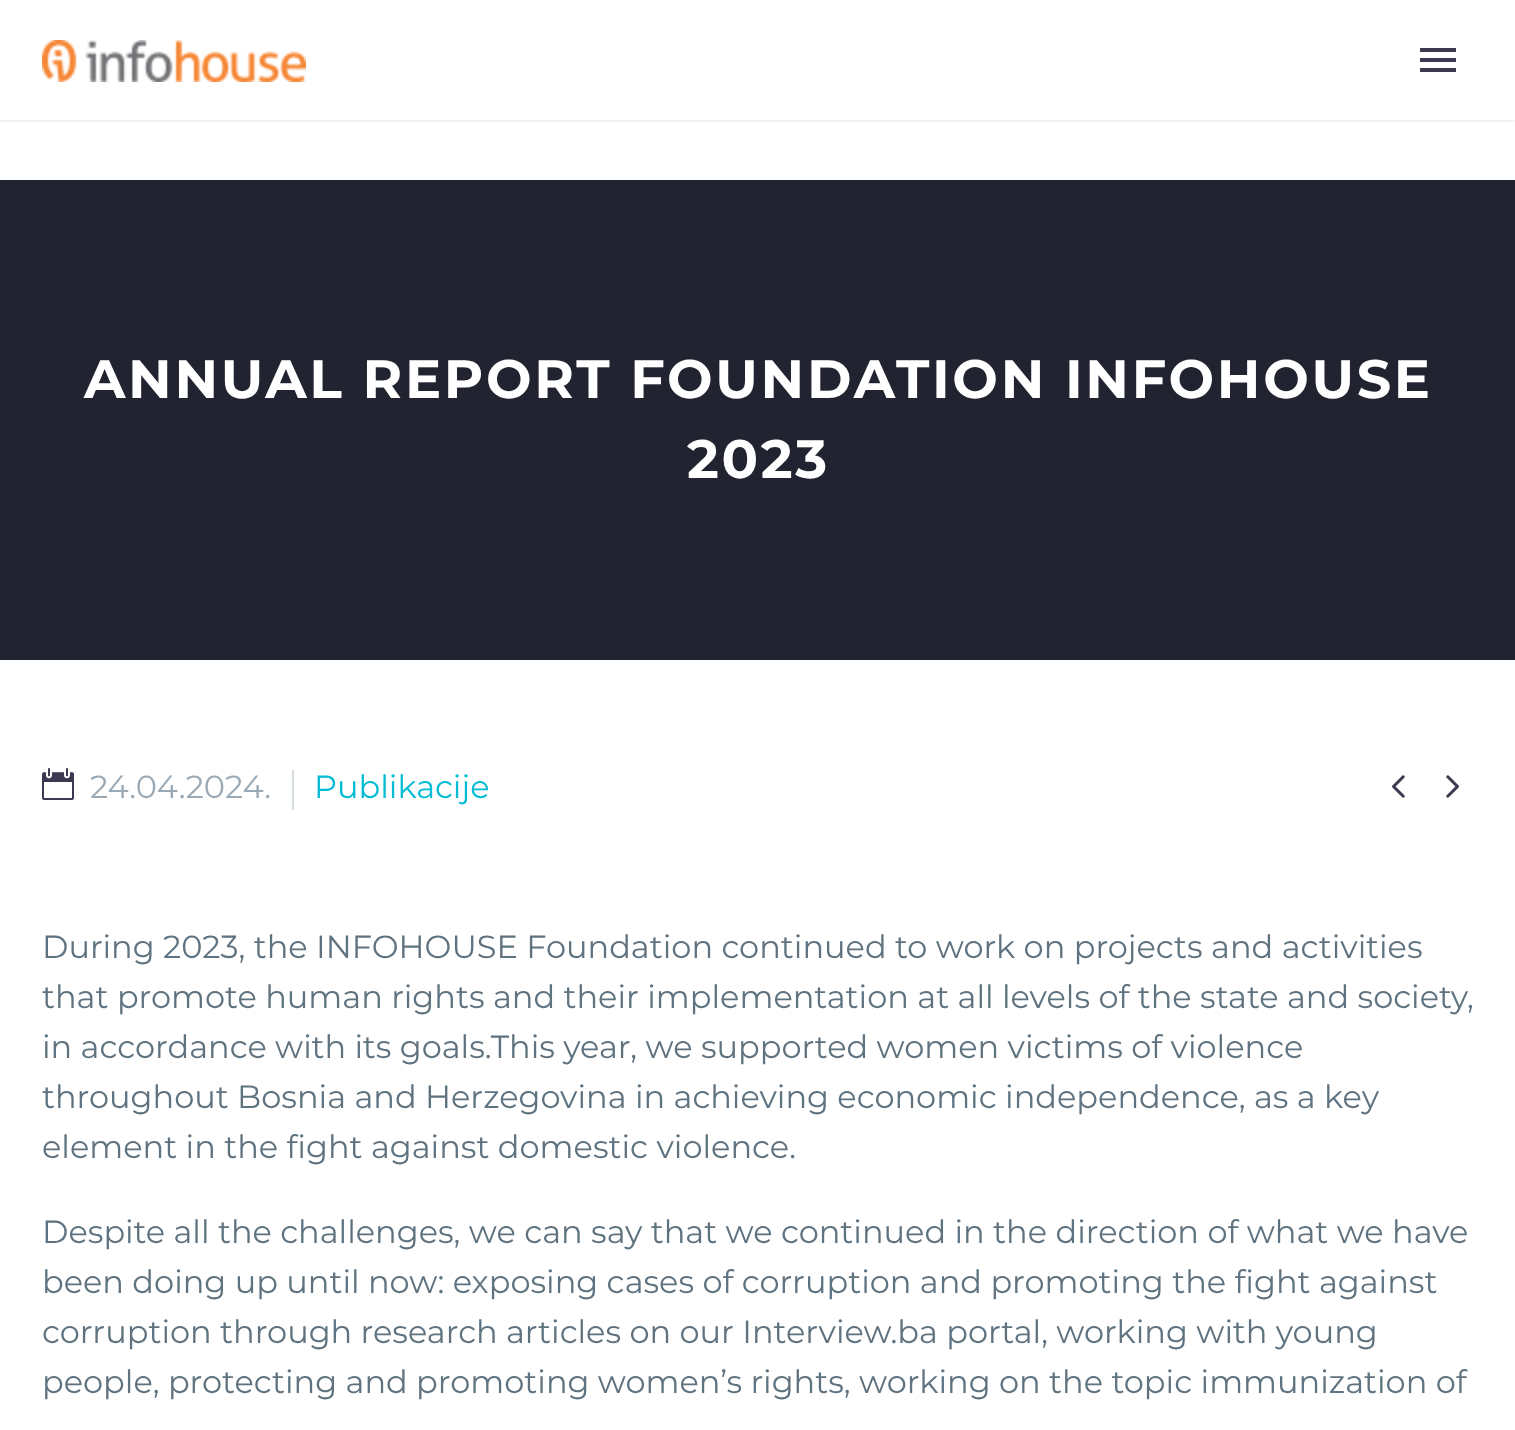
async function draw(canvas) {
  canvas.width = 1515;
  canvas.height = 1430;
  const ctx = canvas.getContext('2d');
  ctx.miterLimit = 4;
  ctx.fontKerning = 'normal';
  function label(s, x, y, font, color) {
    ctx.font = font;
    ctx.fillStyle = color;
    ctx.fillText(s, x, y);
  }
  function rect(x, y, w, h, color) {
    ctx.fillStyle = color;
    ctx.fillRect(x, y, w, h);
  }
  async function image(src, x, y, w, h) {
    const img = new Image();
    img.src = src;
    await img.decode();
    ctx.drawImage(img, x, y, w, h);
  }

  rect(0, 0, 1515, 1430, '#fff');
  ctx.save();
  ctx.beginPath();
  ctx.rect(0, 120, 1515, 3);
  ctx.clip();
  ctx.fillStyle = '#38455433';
  ctx.filter = 'blur(2px)';
  ctx.beginPath();
  ctx.rect(0, 0, 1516, 120);
  ctx.fill();
  ctx.filter = 'none';
  ctx.restore();
  await image('assets/img1.png', 42, 40, 264, 42);
  rect(1420, 48, 36, 4, '#3c3950');
  rect(1420, 58, 36, 4, '#3c3950');
  rect(1420, 68, 36, 4, '#3c3950');
  rect(0, 180, 1515, 480, '#212331');
  ctx.letterSpacing = '2.7px';
  label('ANNUAL REPORT FOUNDATION INFOHOUSE', 84, 398, 'bold 54px Montserrat', '#fff');
  label('2023', 687, 478, 'bold 54px Montserrat', '#fff');
  await image('assets/img2.png', 42, 768, 32, 32);
  ctx.letterSpacing = '0px';
  label('24.04.2024.', 90, 798, '32px Montserrat', '#99a9b5');
  rect(292, 770, 2, 40, '#d4dee1');
  label('Publikacije', 314, 798, '32px Montserrat', '#00bcd4');
  await image('assets/img3.png', 1392, 775, 13, 23);
  await image('assets/img4.png', 1446, 775, 13, 23);
  label('During 2023, the INFOHOUSE Foundation continued to work on projects and activities', 42, 958, '32px Montserrat', '#5f727f');
  label('that promote human rights and their implementation at all levels of the state and society,', 42, 1008, '32px Montserrat', '#5f727f');
  label('in accordance with its goals.This year, we supported women victims of violence', 42, 1058, '32px Montserrat', '#5f727f');
  label('throughout Bosnia and Herzegovina in achieving economic independence, as a key', 42, 1108, '32px Montserrat', '#5f727f');
  label('element in the fight against domestic violence.', 42, 1158, '32px Montserrat', '#5f727f');
  label('Despite all the challenges, we can say that we continued in the direction of what we have', 42, 1243, '32px Montserrat', '#5f727f');
  label('been doing up until now: exposing cases of corruption and promoting the fight against', 42, 1293, '32px Montserrat', '#5f727f');
  label('corruption through research articles on our Interview.ba portal, working with young', 42, 1343, '32px Montserrat', '#5f727f');
  label('people, protecting and promoting women’s rights, working on the topic immunization of', 42, 1393, '32px Montserrat', '#5f727f');
}

draw(document.querySelector('canvas'));
